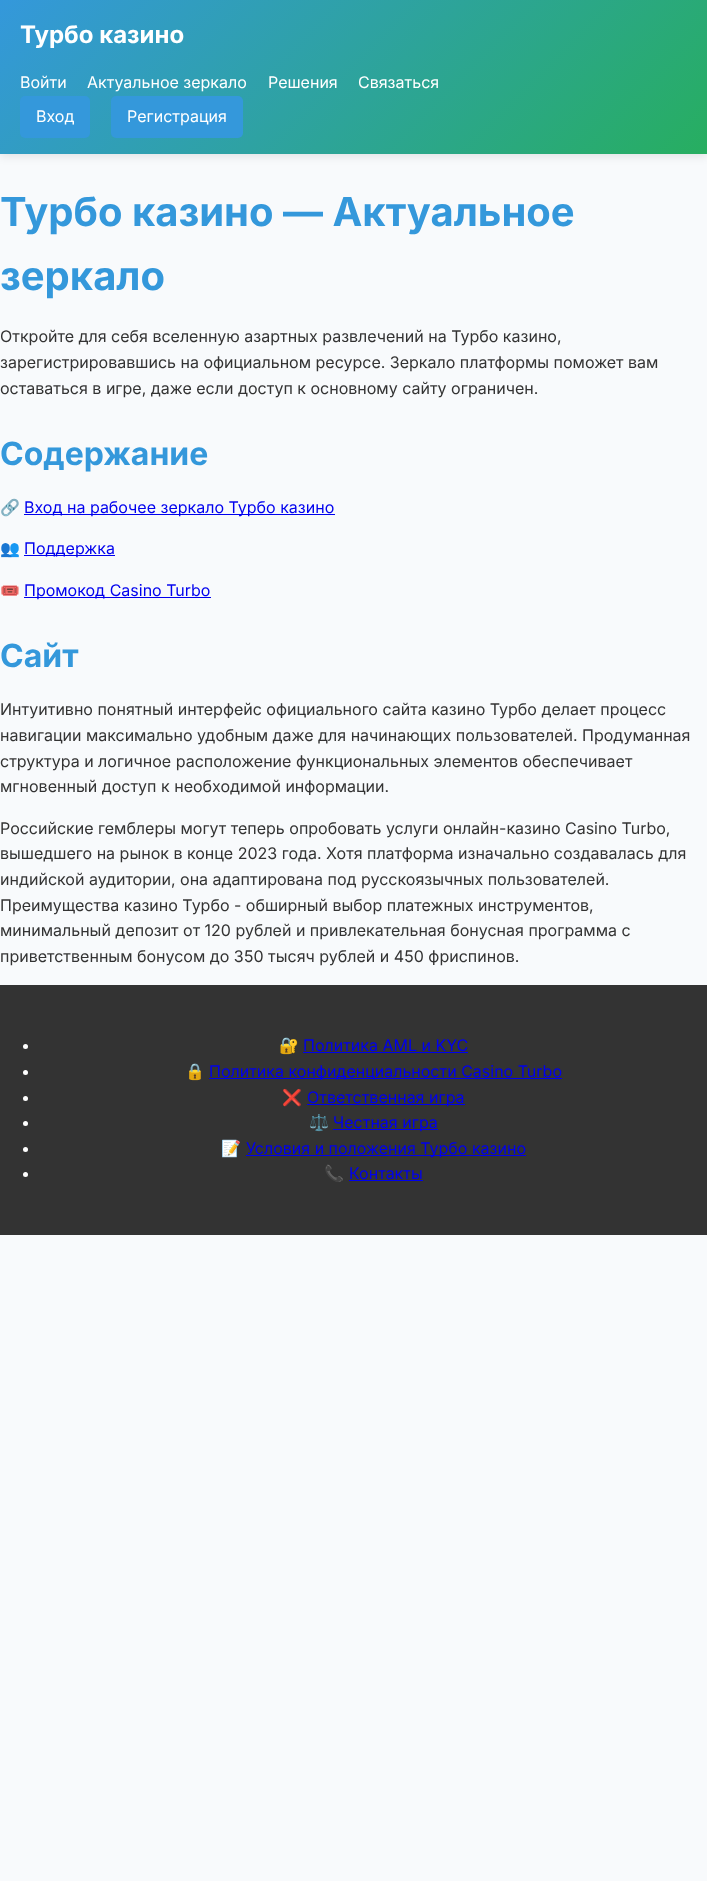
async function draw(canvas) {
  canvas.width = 707;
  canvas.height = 1881;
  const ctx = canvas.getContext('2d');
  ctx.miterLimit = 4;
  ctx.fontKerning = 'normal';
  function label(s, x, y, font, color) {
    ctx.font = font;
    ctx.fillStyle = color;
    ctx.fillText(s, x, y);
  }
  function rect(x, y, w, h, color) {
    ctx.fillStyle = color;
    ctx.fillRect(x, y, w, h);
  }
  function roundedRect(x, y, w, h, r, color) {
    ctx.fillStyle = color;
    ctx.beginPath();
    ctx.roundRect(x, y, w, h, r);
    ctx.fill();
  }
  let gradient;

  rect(0, 0, 707, 1881, '#f8fafc');
  ctx.fillStyle = '#0000001a';
  ctx.filter = 'blur(5px)';
  ctx.beginPath();
  ctx.rect(0, 2, 707, 154);
  ctx.fill();
  ctx.filter = 'none';
  gradient = ctx.createLinearGradient(138, -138, 569, 292);
  gradient.addColorStop(0, '#3498db');
  gradient.addColorStop(1, '#27ae60');
  ctx.fillStyle = gradient;
  ctx.fillRect(0, 0, 707, 154);
  label('Турбо казино', 20, 43, 'bold 24px Inter', '#fff');
  label('Войти', 20, 88, '16px Inter', '#fff');
  label('Актуальное зеркало', 87, 88, '16px Inter', '#fff');
  label('Решения', 268, 88, '16px Inter', '#fff');
  label('Связаться', 358, 88, '16px Inter', '#fff');
  roundedRect(20, 96, 70, 42, 5, '#3498db');
  label('Вход', 36, 122, '16px Inter', '#fff');
  roundedRect(111, 96, 132, 42, 5, '#3498db');
  label('Регистрация', 127, 122, '16px Inter', '#fff');
  label('Турбо казино — Актуальное', 0, 226, 'bold 40px Inter', '#3498db');
  label('зеркало', 0, 290, 'bold 40px Inter', '#3498db');
  label('Откройте для себя вселенную азартных развлечений на Турбо казино,', 0, 342, '16px Inter', '#333');
  label('зарегистрировавшись на официальном ресурсе. Зеркало платформы поможет вам', 0, 368, '16px Inter', '#333');
  label('оставаться в игре, даже если доступ к основному сайту ограничен.', 0, 394, '16px Inter', '#333');
  label('Содержание', 0, 465, 'bold 32px Inter', '#3498db');
  label('🔗', 0, 513, '16px Noto Color Emoji', '#333');
  rect(24, 514, 311, 1, '#00e');
  label('Вход на рабочее зеркало Турбо казино', 24, 513, '16px Inter', '#00e');
  label('👥', 0, 554, '16px Noto Color Emoji', '#333');
  rect(24, 555, 91, 1, '#00e');
  label('Поддержка', 24, 554, '16px Inter', '#00e');
  label('🎟️', 0, 596, '16px Noto Color Emoji', '#333');
  rect(24, 597, 187, 1, '#00e');
  label('Промокод Casino Turbo', 24, 596, '16px Inter', '#00e');
  label('Сайт', 0, 667, 'bold 32px Inter', '#3498db');
  label('Интуитивно понятный интерфейс официального сайта казино Турбо делает процесс', 0, 715, '16px Inter', '#333');
  label('навигации максимально удобным даже для начинающих пользователей. Продуманная', 0, 741, '16px Inter', '#333');
  label('структура и логичное расположение функциональных элементов обеспечивает', 0, 767, '16px Inter', '#333');
  label('мгновенный доступ к необходимой информации.', 0, 792, '16px Inter', '#333');
  label('Российские гемблеры могут теперь опробовать услуги онлайн-казино Casino Turbo,', 0, 834, '16px Inter', '#333');
  label('вышедшего на рынок в конце 2023 года. Хотя платформа изначально создавалась для', 0, 859, '16px Inter', '#333');
  label('индийской аудитории, она адаптирована под русскоязычных пользователей.', 0, 885, '16px Inter', '#333');
  label('Преимущества казино Турбо - обширный выбор платежных инструментов,', 0, 911, '16px Inter', '#333');
  label('минимальный депозит от 120 рублей и привлекательная бонусная программа с', 0, 936, '16px Inter', '#333');
  label('приветственным бонусом до 350 тысяч рублей и 450 фриспинов.', 0, 962, '16px Inter', '#333');
  rect(0, 985, 707, 250, '#333');
  ctx.fillStyle = '#fff';
  ctx.beginPath();
  ctx.arc(25.5, 1046.5, 2.5, 0, 2 * Math.PI);
  ctx.fill();
  label('🔐', 279, 1051, '16px Noto Color Emoji', '#fff');
  label('Политика AML и KYC', 303, 1051, '16px Inter', '#00e');
  rect(303, 1052, 165, 1, '#00e');
  ctx.fillStyle = '#fff';
  ctx.beginPath();
  ctx.arc(25.5, 1072.5, 2.5, 0, 2 * Math.PI);
  ctx.fill();
  label('🔒', 185, 1077, '16px Noto Color Emoji', '#fff');
  rect(209, 1078, 353, 1, '#00e');
  label('Политика конфиденциальности Casino Turbo', 209, 1077, '16px Inter', '#00e');
  ctx.fillStyle = '#fff';
  ctx.beginPath();
  ctx.arc(25.5, 1098.5, 2.5, 0, 2 * Math.PI);
  ctx.fill();
  label('❌', 282, 1103, '16px Noto Color Emoji', '#fff');
  rect(307, 1104, 158, 1, '#00e');
  label('Ответственная игра', 307, 1103, '16px Inter', '#00e');
  ctx.fillStyle = '#fff';
  ctx.beginPath();
  ctx.arc(25.5, 1123.5, 2.5, 0, 2 * Math.PI);
  ctx.fill();
  label('⚖️', 309, 1128, '16px Noto Color Emoji', '#fff');
  rect(333, 1129, 105, 1, '#00e');
  label('Честная игра', 333, 1128, '16px Inter', '#00e');
  ctx.fillStyle = '#fff';
  ctx.beginPath();
  ctx.arc(25.5, 1149.5, 2.5, 0, 2 * Math.PI);
  ctx.fill();
  label('📝', 221, 1154, '16px Noto Color Emoji', '#fff');
  rect(246, 1155, 280, 1, '#00e');
  label('Условия и положения Турбо казино', 246, 1154, '16px Inter', '#00e');
  ctx.fillStyle = '#fff';
  ctx.beginPath();
  ctx.arc(25.5, 1174.5, 2.5, 0, 2 * Math.PI);
  ctx.fill();
  label('📞', 324, 1179, '16px Noto Color Emoji', '#fff');
  label('Контакты', 349, 1179, '16px Inter', '#00e');
  rect(349, 1180, 74, 1, '#00e');
}

draw(document.querySelector('canvas'));
